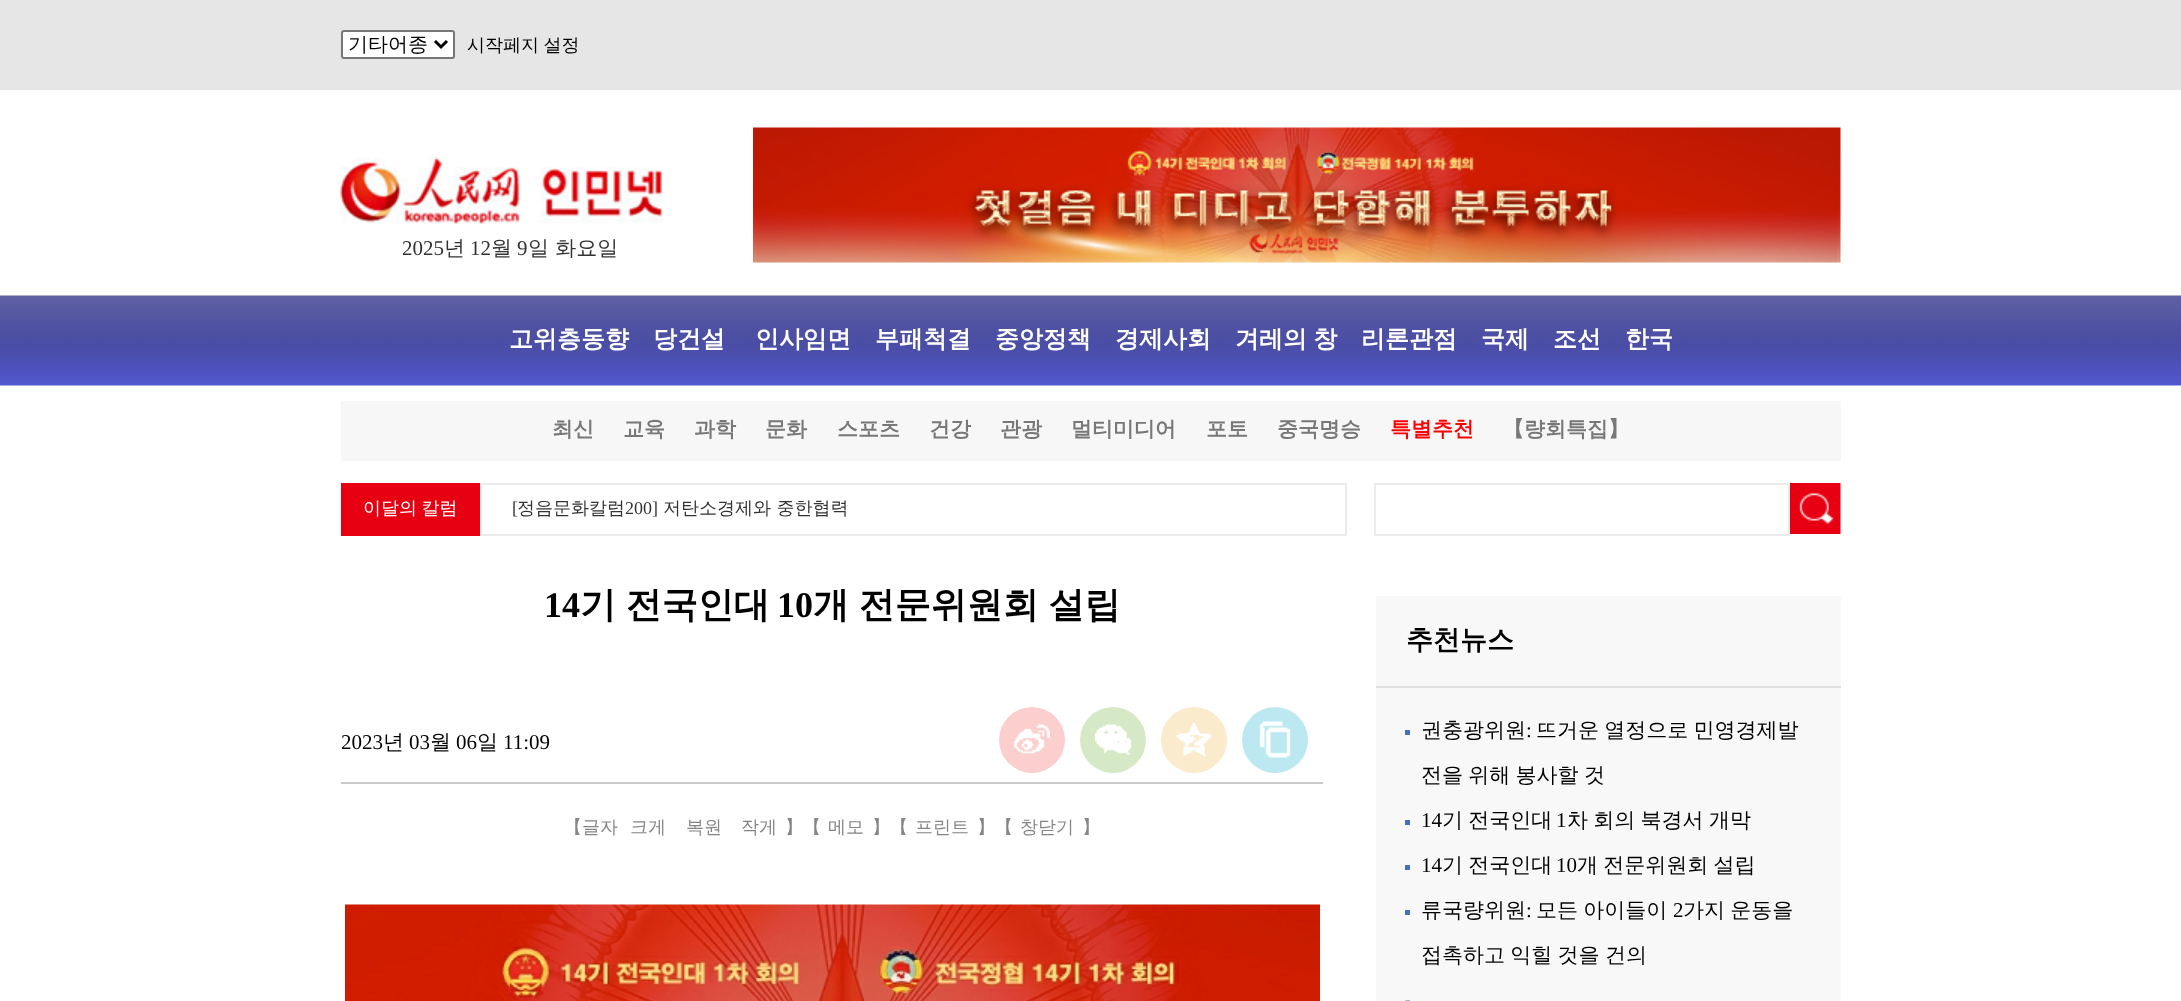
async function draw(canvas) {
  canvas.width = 2181;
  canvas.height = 1001;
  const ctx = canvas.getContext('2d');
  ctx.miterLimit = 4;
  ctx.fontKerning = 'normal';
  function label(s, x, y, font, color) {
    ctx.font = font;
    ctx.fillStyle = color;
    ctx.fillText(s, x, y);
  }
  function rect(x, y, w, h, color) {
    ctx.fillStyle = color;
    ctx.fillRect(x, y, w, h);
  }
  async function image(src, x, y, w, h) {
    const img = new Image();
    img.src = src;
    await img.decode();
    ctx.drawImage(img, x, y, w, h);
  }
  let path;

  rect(0, 0, 2181, 1001, '#fff');
  rect(0, 0, 2181, 90, '#e6e6e6');
  ctx.fillStyle = '#fff';
  ctx.beginPath();
  ctx.roundRect(342, 31, 112, 27, 2);
  ctx.fill();
  ctx.strokeStyle = '#767676';
  ctx.lineWidth = 2;
  ctx.stroke();
  path = new Path2D('M435 41L441 47L447 41');
  ctx.strokeStyle = '#000';
  ctx.lineWidth = 3;
  ctx.stroke(path);
  label('기타어종', 348, 51, '500 20px WenQuanYi Zen Hei', '#000');
  ctx.wordSpacing = '-1px';
  label('시작페지 설정', 467, 51, '500 18px WenQuanYi Zen Hei', '#000');
  await image('assets/img1.png', 340, 157, 324, 67);
  ctx.wordSpacing = '0px';
  label('2025', 402, 255, '21px Liberation Serif', '#333');
  label('년', 444, 255, '500 21px WenQuanYi Zen Hei', '#333');
  label('12', 470, 255, '21px Liberation Serif', '#333');
  label('월', 491, 255, '500 21px WenQuanYi Zen Hei', '#333');
  label('9', 517, 255, '21px Liberation Serif', '#333');
  label('일 화요일', 528, 255, '500 21px WenQuanYi Zen Hei', '#333');
  await image('assets/img2.png', 753, 127, 1088, 136);
  await image('assets/img3.png', 0, 295, 2181, 91);
  label('고위층동향', 509, 347, 'bold 24px WenQuanYi Zen Hei', '#fff');
  label('당건설', 653, 347, 'bold 24px WenQuanYi Zen Hei', '#fff');
  label('인사임면', 755, 347, 'bold 24px WenQuanYi Zen Hei', '#fff');
  label('부패척결', 875, 347, 'bold 24px WenQuanYi Zen Hei', '#fff');
  label('중앙정책', 995, 347, 'bold 24px WenQuanYi Zen Hei', '#fff');
  label('경제사회', 1115, 347, 'bold 24px WenQuanYi Zen Hei', '#fff');
  ctx.wordSpacing = '-1px';
  label('겨레의 창', 1235, 347, 'bold 24px WenQuanYi Zen Hei', '#fff');
  ctx.wordSpacing = '0px';
  label('리론관점', 1361, 347, 'bold 24px WenQuanYi Zen Hei', '#fff');
  label('국제', 1481, 347, 'bold 24px WenQuanYi Zen Hei', '#fff');
  label('조선', 1553, 347, 'bold 24px WenQuanYi Zen Hei', '#fff');
  label('한국', 1625, 347, 'bold 24px WenQuanYi Zen Hei', '#fff');
  rect(341, 401, 1500, 60, '#f7f7f7');
  label('최신', 552, 436, 'bold 21px WenQuanYi Zen Hei', '#787878');
  label('교육', 623, 436, 'bold 21px WenQuanYi Zen Hei', '#787878');
  label('과학', 694, 436, 'bold 21px WenQuanYi Zen Hei', '#787878');
  label('문화', 765, 436, 'bold 21px WenQuanYi Zen Hei', '#787878');
  label('스포츠', 837, 436, 'bold 21px WenQuanYi Zen Hei', '#787878');
  label('건강', 929, 436, 'bold 21px WenQuanYi Zen Hei', '#787878');
  label('관광', 1000, 436, 'bold 21px WenQuanYi Zen Hei', '#787878');
  label('멀티미디어', 1071, 436, 'bold 21px WenQuanYi Zen Hei', '#787878');
  label('포토', 1206, 436, 'bold 21px WenQuanYi Zen Hei', '#787878');
  label('중국명승', 1277, 436, 'bold 21px WenQuanYi Zen Hei', '#787878');
  label('특별추천', 1390, 436, 'bold 21px WenQuanYi Zen Hei', '#f00');
  label('【량회특집】', 1503, 436, 'bold 21px WenQuanYi Zen Hei', '#787878');
  rect(341, 483, 139, 53, '#e70012');
  ctx.wordSpacing = '-1px';
  label('이달의 칼럼', 363, 514, '500 18px WenQuanYi Zen Hei', '#fff');
  ctx.strokeStyle = '#ebebeb';
  ctx.lineWidth = 2;
  ctx.strokeRect(481, 484, 865, 51);
  ctx.wordSpacing = '0px';
  label('[', 512, 514, '18px Liberation Serif', '#333');
  label('정음문화칼럼', 517, 514, '500 18px WenQuanYi Zen Hei', '#333');
  label('200]', 625, 514, '18px Liberation Serif', '#333');
  label('저탄소경제와 중한협력', 663, 514, '500 18px WenQuanYi Zen Hei', '#333');
  ctx.strokeRect(1375, 484, 414, 51);
  await image('assets/img4.png', 1790, 483, 51, 51);
  label('14', 544, 617, 'bold 36px Liberation Serif', '#000');
  ctx.wordSpacing = '-1px';
  label('기 전국인대', 580, 617, 'bold 36px WenQuanYi Zen Hei', '#000');
  ctx.wordSpacing = '0px';
  label('10', 777, 617, 'bold 36px Liberation Serif', '#000');
  ctx.wordSpacing = '-1px';
  label('개 전문위원회 설립', 813, 617, 'bold 36px WenQuanYi Zen Hei', '#000');
  ctx.wordSpacing = '0px';
  label('2023', 341, 749, '21px Liberation Serif', '#000');
  label('년', 383, 749, '500 21px WenQuanYi Zen Hei', '#000');
  label('03', 409, 749, '21px Liberation Serif', '#000');
  label('월', 430, 749, '500 21px WenQuanYi Zen Hei', '#000');
  label('06', 456, 749, '21px Liberation Serif', '#000');
  label('일', 477, 749, '500 21px WenQuanYi Zen Hei', '#000');
  label('11:09', 503, 749, '21px Liberation Serif', '#000');
  ctx.fillStyle = '#fccfcf';
  ctx.beginPath();
  ctx.arc(1032, 740, 33, 0, 2 * Math.PI);
  ctx.fill();
  await image('assets/img5.png', 1014, 724, 36, 30);
  ctx.fillStyle = '#d6e9c6';
  ctx.beginPath();
  ctx.arc(1113, 740, 33, 0, 2 * Math.PI);
  ctx.fill();
  await image('assets/img6.png', 1095, 724, 36, 31);
  ctx.fillStyle = '#faebcc';
  ctx.beginPath();
  ctx.arc(1194, 740, 33, 0, 2 * Math.PI);
  ctx.fill();
  await image('assets/img7.png', 1176, 722, 36, 35);
  ctx.fillStyle = '#bce8f1';
  ctx.beginPath();
  ctx.arc(1275, 740, 33, 0, 2 * Math.PI);
  ctx.fill();
  await image('assets/img8.png', 1259, 721, 32, 37);
  rect(341, 782, 982, 2, '#cacaca');
  label('【글자', 564, 833, '500 18px WenQuanYi Zen Hei', '#858585');
  label('크게', 630, 833, '500 18px WenQuanYi Zen Hei', '#858585');
  label('복원', 686, 833, '500 18px WenQuanYi Zen Hei', '#858585');
  label('작게', 741, 833, '500 18px WenQuanYi Zen Hei', '#858585');
  label('】【', 785, 833, '500 18px WenQuanYi Zen Hei', '#858585');
  label('메모', 828, 833, '500 18px WenQuanYi Zen Hei', '#858585');
  label('】【', 872, 833, '500 18px WenQuanYi Zen Hei', '#858585');
  label('프린트', 915, 833, '500 18px WenQuanYi Zen Hei', '#858585');
  label('】【', 977, 833, '500 18px WenQuanYi Zen Hei', '#858585');
  label('창닫기', 1020, 833, '500 18px WenQuanYi Zen Hei', '#858585');
  label('】', 1082, 833, '500 18px WenQuanYi Zen Hei', '#858585');
  await image('assets/img9.png', 345, 904, 975, 97);
  rect(1376, 596, 465, 405, '#f8f8f8');
  rect(1376, 686, 465, 2, '#e0e0e0');
  label('추천뉴스', 1406, 649, 'bold 27px WenQuanYi Zen Hei', '#000');
  rect(1405, 730, 5, 5, '#456ec2');
  label('권충광위원', 1421, 737, '500 21px WenQuanYi Zen Hei', '#000');
  label(':', 1526, 737, '21px Liberation Serif', '#000');
  ctx.wordSpacing = '-1px';
  label('뜨거운 열정으로 민영경제발', 1536, 737, '500 21px WenQuanYi Zen Hei', '#000');
  label('전을 위해 봉사할 것', 1421, 782, '500 21px WenQuanYi Zen Hei', '#000');
  rect(1405, 820, 5, 5, '#456ec2');
  ctx.wordSpacing = '0px';
  label('14', 1421, 827, '21px Liberation Serif', '#000');
  ctx.wordSpacing = '-1px';
  label('기 전국인대', 1442, 827, '500 21px WenQuanYi Zen Hei', '#000');
  ctx.wordSpacing = '0px';
  label('1', 1556, 827, '21px Liberation Serif', '#000');
  ctx.wordSpacing = '-1px';
  label('차 회의 북경서 개막', 1567, 827, '500 21px WenQuanYi Zen Hei', '#000');
  rect(1405, 865, 5, 5, '#456ec2');
  ctx.wordSpacing = '0px';
  label('14', 1421, 872, '21px Liberation Serif', '#000');
  ctx.wordSpacing = '-1px';
  label('기 전국인대', 1442, 872, '500 21px WenQuanYi Zen Hei', '#000');
  ctx.wordSpacing = '0px';
  label('10', 1556, 872, '21px Liberation Serif', '#000');
  ctx.wordSpacing = '-1px';
  label('개 전문위원회 설립', 1577, 872, '500 21px WenQuanYi Zen Hei', '#000');
  rect(1405, 910, 5, 5, '#456ec2');
  ctx.wordSpacing = '0px';
  label('류국량위원', 1421, 917, '500 21px WenQuanYi Zen Hei', '#000');
  label(':', 1526, 917, '21px Liberation Serif', '#000');
  ctx.wordSpacing = '-1px';
  label('모든 아이들이', 1536, 917, '500 21px WenQuanYi Zen Hei', '#000');
  ctx.wordSpacing = '0px';
  label('2', 1673, 917, '21px Liberation Serif', '#000');
  ctx.wordSpacing = '-1px';
  label('가지 운동을', 1683, 917, '500 21px WenQuanYi Zen Hei', '#000');
  label('접촉하고 익힐 것을 건의', 1421, 962, '500 21px WenQuanYi Zen Hei', '#000');
  await image('assets/img10.png', 1405, 1000, 5, 1);
}

draw(document.querySelector('canvas'));
